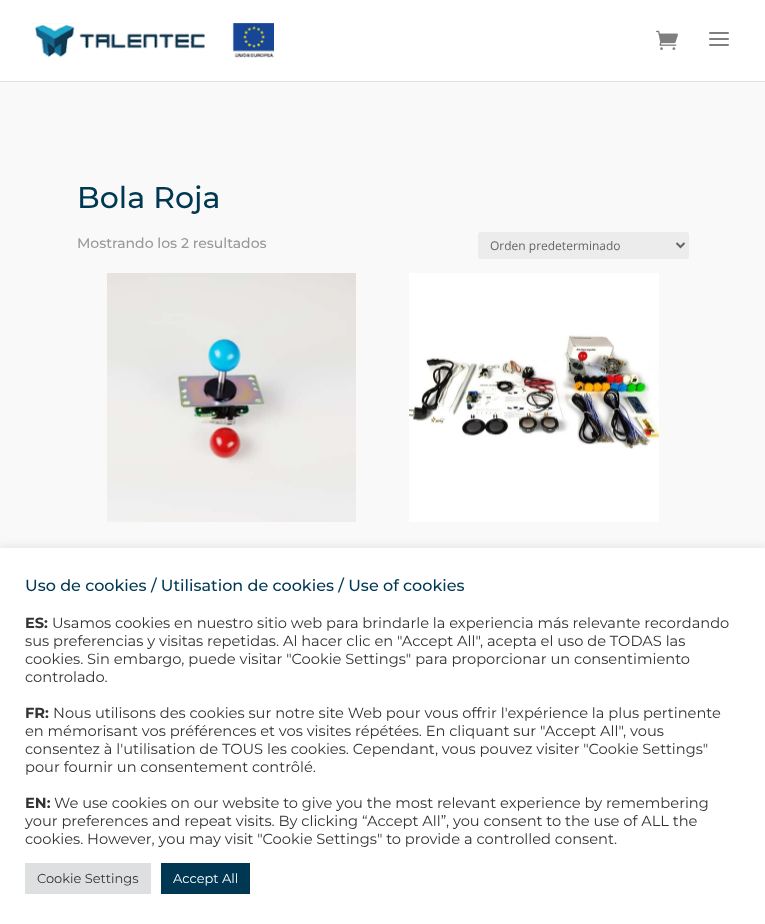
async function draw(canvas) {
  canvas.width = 765;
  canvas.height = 924;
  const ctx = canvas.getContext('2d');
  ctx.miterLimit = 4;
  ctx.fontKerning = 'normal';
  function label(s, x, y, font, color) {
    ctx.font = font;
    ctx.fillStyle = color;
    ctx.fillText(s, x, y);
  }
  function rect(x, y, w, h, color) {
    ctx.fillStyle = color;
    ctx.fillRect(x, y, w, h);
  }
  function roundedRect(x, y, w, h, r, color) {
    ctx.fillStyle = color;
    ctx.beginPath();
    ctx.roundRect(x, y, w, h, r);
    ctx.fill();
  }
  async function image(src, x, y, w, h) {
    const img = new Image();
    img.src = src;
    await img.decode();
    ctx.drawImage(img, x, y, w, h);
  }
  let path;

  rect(0, 0, 765, 924, '#f9f9f9');
  rect(0, 81, 765, 1, '#e0e0e0');
  rect(0, 0, 765, 81, '#fff');
  await image('assets/img1.png', 34, 23, 240, 35);
  await image('assets/img2.png', 656, 30, 22, 20);
  await image('assets/img3.png', 709, 32, 20, 14);
  label('Bola Roja', 77, 208, '500 30px Montserrat', '#003753');
  label('Mostrando los 2 resultados', 77, 248, '500 14px Montserrat', '#999');
  roundedRect(478, 232, 211, 27, 3, '#ececec');
  path = new Path2D('M676.5 243L680.5 247L684.5 243');
  ctx.strokeStyle = '#666';
  ctx.lineWidth = 2;
  ctx.stroke(path);
  label('Orden predeterminado', 490, 250, '12px Open Sans', '#666');
  await image('assets/img4.png', 107, 273, 249, 249);
  await image('assets/img5.png', 409, 273, 250, 249);
  ctx.fillStyle = '#acabab4d';
  ctx.filter = 'blur(5px)';
  ctx.beginPath();
  ctx.rect(0, 547, 765, 376);
  ctx.fill();
  ctx.filter = 'none';
  rect(0, 548, 765, 376, '#fff');
  label('Uso de cookies / Utilisation de cookies / Use of cookies', 25, 591, '500 16px Montserrat', '#003753');
  label('ES:', 25, 628, 'bold 14.65px Montserrat', '#333');
  label('Usamos cookies en nuestro sitio web para brindarle la experiencia más relevante recordando', 52, 628, '14.65px Montserrat', '#333');
  label('sus preferencias y visitas repetidas. Al hacer clic en "Accept All", acepta el uso de TODAS las', 25, 646, '14.65px Montserrat', '#333');
  label('cookies. Sin embargo, puede visitar "Cookie Settings" para proporcionar un consentimiento', 25, 664, '14.65px Montserrat', '#333');
  label('controlado.', 25, 682, '14.65px Montserrat', '#333');
  label('FR:', 25, 718, 'bold 14.65px Montserrat', '#333');
  label('Nous utilisons des cookies sur notre site Web pour vous offrir l\'expérience la plus pertinente', 53, 718, '14.65px Montserrat', '#333');
  label('en mémorisant vos préférences et vos visites répétées. En cliquant sur "Accept All", vous', 25, 736, '14.65px Montserrat', '#333');
  label('consentez à l\'utilisation de TOUS les cookies. Cependant, vous pouvez visiter "Cookie Settings"', 25, 754, '14.65px Montserrat', '#333');
  label('pour fournir un consentement contrôlé.', 25, 772, '14.65px Montserrat', '#333');
  label('EN:', 25, 808, 'bold 14.65px Montserrat', '#333');
  label('We use cookies on our website to give you the most relevant experience by remembering', 54, 808, '14.65px Montserrat', '#333');
  label('your preferences and repeat visits. By clicking “Accept All”, you consent to the use of ALL the', 25, 826, '14.65px Montserrat', '#333');
  label('cookies. However, you may visit "Cookie Settings" to provide a controlled consent.', 25, 844, '14.65px Montserrat', '#333');
  rect(25, 863, 126, 31, '#dedfe0');
  label('Cookie Settings', 37, 883, '13px Montserrat', '#333');
  rect(161, 863, 89, 31, '#003753');
  label('Accept All', 173, 883, '13px Montserrat', '#fff');
}

draw(document.querySelector('canvas'));
